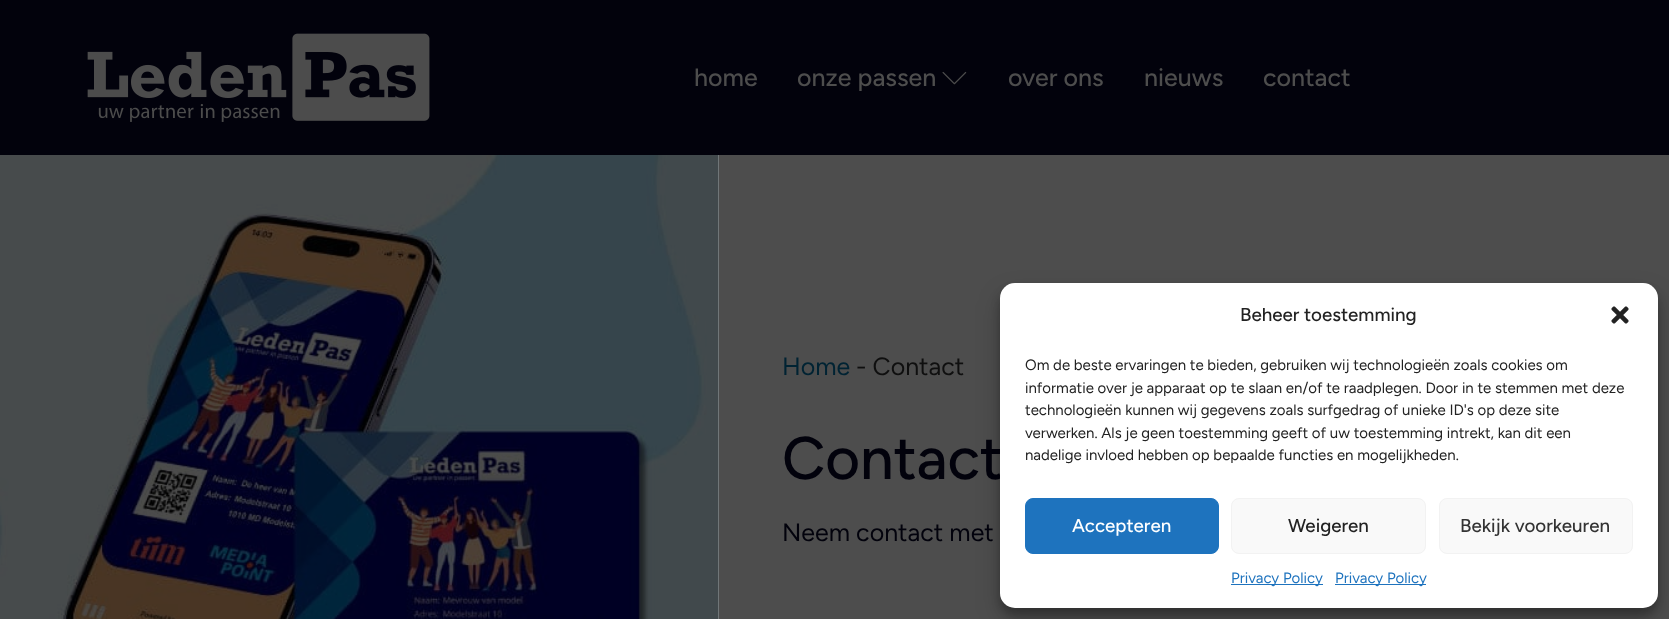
async function draw(canvas) {
  canvas.width = 1669;
  canvas.height = 619;
  const ctx = canvas.getContext('2d');
  ctx.miterLimit = 4;
  ctx.fontKerning = 'normal';
  function label(s, x, y, font, color) {
    ctx.font = font;
    ctx.fillStyle = color;
    ctx.fillText(s, x, y);
  }
  function rect(x, y, w, h, color) {
    ctx.fillStyle = color;
    ctx.fillRect(x, y, w, h);
  }
  function roundedRect(x, y, w, h, r, color) {
    ctx.fillStyle = color;
    ctx.beginPath();
    ctx.roundRect(x, y, w, h, r);
    ctx.fill();
  }
  async function image(src, x, y, w, h) {
    const img = new Image();
    img.src = src;
    await img.decode();
    ctx.drawImage(img, x, y, w, h);
  }

  rect(0, 0, 1669, 619, '#fff');
  rect(0, 0, 1669, 155, '#02020c');
  await image('assets/img1.png', 87, 33, 343, 89);
  label('home', 694, 86, '300 25px "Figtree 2"', '#4d4d4d');
  label('onze passen', 797, 86, '300 25px "Figtree 2"', '#4d4d4d');
  await image('assets/img2.png', 942, 71, 25, 14);
  label('over ons', 1008, 86, '300 25px "Figtree 2"', '#4d4d4d');
  label('nieuws', 1144, 86, '300 25px "Figtree 2"', '#4d4d4d');
  label('contact', 1263, 86, '300 25px "Figtree 2"', '#4d4d4d');
  await image('assets/img3.png', 0, 155, 719, 464);
  rect(719, 155, 950, 464, '#4d4d4d');
  label('Home', 782, 375, '300 25px Figtree', '#002333');
  label('- Contact', 856, 375, '300 25px Figtree', '#0f0f0f');
  label('Contact', 782, 479, '300 60px "Figtree 2"', '#02020c');
  label('Neem contact met', 782, 541, '300 25px Figtree', '#02020c');
  ctx.fillStyle = '#0000003b';
  ctx.filter = 'blur(4px)';
  ctx.beginPath();
  ctx.roundRect(1000, 290, 658, 325, 15);
  ctx.fill();
  ctx.filter = 'none';
  ctx.fillStyle = '#00000030';
  ctx.filter = 'blur(12.5px)';
  ctx.beginPath();
  ctx.roundRect(1000, 295, 658, 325, 15);
  ctx.fill();
  ctx.filter = 'none';
  roundedRect(1000, 283, 658, 325, 15, '#fff');
  label('Beheer toestemming', 1240, 321, '300 18.75px "Figtree 2"', '#222');
  await image('assets/img4.png', 1611, 306, 18, 18);
  label('Om de beste ervaringen te bieden, gebruiken wij technologieën zoals cookies om', 1025, 370, '300 15px Figtree', '#222');
  label('informatie over je apparaat op te slaan en/of te raadplegen. Door in te stemmen met deze', 1025, 393, '300 15px Figtree', '#222');
  label('technologieën kunnen wij gegevens zoals surfgedrag of unieke ID\'s op deze site', 1025, 415, '300 15px Figtree', '#222');
  label('verwerken. Als je geen toestemming geeft of uw toestemming intrekt, kan dit een', 1025, 438, '300 15px Figtree', '#222');
  label('nadelige invloed hebben op bepaalde functies en mogelijkheden.', 1025, 460, '300 15px Figtree', '#222');
  ctx.fillStyle = '#1e73be';
  ctx.beginPath();
  ctx.roundRect(1025.5, 498.5, 193, 55, 7.5);
  ctx.fill();
  ctx.strokeStyle = '#1e73be';
  ctx.stroke();
  label('Accepteren', 1072, 532, '300 18.75px "Figtree 2"', '#fff');
  ctx.fillStyle = '#f9f9f9';
  ctx.beginPath();
  ctx.roundRect(1231.5, 498.5, 194, 55, 7.5);
  ctx.fill();
  ctx.strokeStyle = '#f2f2f2';
  ctx.stroke();
  label('Weigeren', 1288, 532, '300 18.75px "Figtree 2"', '#222');
  ctx.fillStyle = '#f9f9f9';
  ctx.beginPath();
  ctx.roundRect(1439.5, 498.5, 193, 55, 7.5);
  ctx.fill();
  ctx.stroke();
  label('Bekijk voorkeuren', 1460, 532, '300 18.75px "Figtree 2"', '#333');
  rect(1231, 584, 92, 1, '#1e73be');
  label('Privacy Policy', 1231, 583, '300 15px Figtree', '#1e73be');
  rect(1335, 584, 91, 1, '#1e73be');
  label('Privacy Policy', 1335, 583, '300 15px Figtree', '#1e73be');
}

draw(document.querySelector('canvas'));
